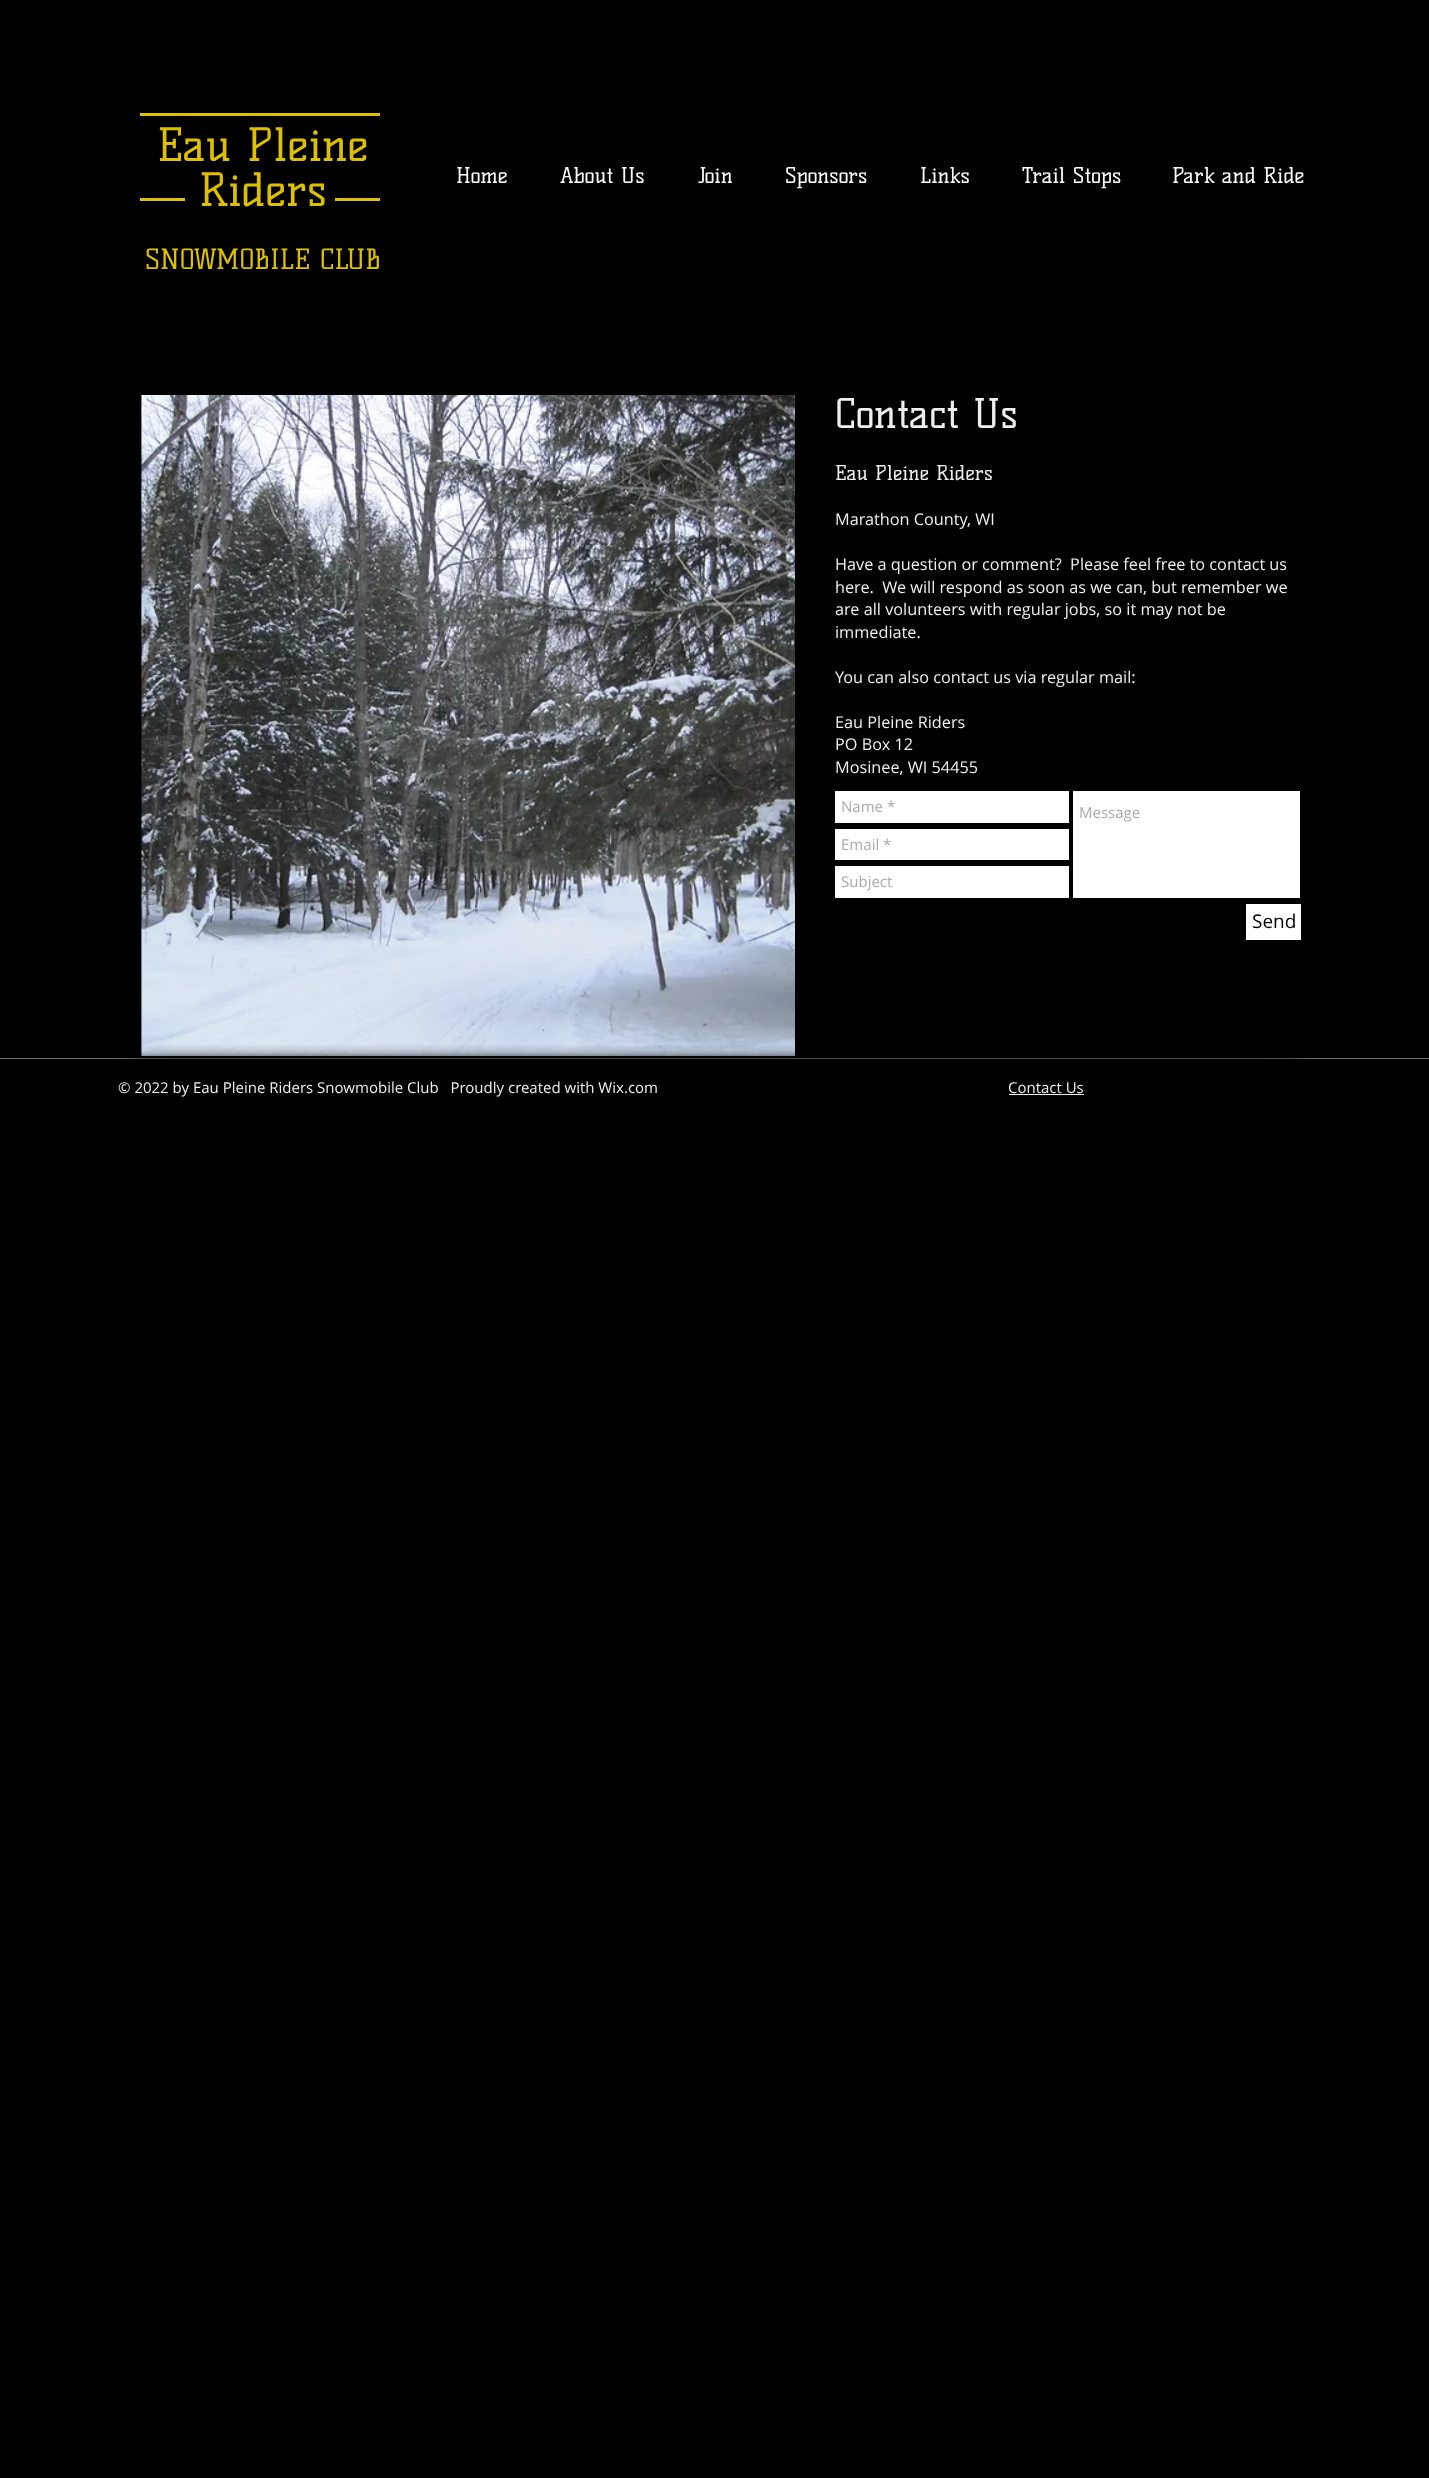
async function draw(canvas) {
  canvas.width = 1429;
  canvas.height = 2478;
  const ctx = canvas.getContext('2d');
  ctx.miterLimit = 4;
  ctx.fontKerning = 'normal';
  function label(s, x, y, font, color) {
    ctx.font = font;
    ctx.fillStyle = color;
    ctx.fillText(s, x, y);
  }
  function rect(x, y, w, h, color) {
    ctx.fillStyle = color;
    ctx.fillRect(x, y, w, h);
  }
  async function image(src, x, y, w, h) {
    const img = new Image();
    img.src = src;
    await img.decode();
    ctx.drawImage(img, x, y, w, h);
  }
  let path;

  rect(0, 0, 1429, 2478, '#000');
  rect(140, 113, 240, 3, '#ddc000');
  label('Eau Pleine', 157, 161, '45px Kelly Slab', '#ddc000');
  label('Riders', 199, 206, '45px Kelly Slab', '#ddc000');
  label('SNOWMOBILE CLUB', 145, 269, '27.5px Kelly Slab', '#ddc000');
  rect(140, 198, 45, 3, '#ddc000');
  rect(335, 198, 45, 3, '#ddc000');
  label('Home', 456, 183, '21.25px Kelly Slab', '#fff');
  label('About Us', 560, 183, '21.25px Kelly Slab', '#fff');
  label('Join', 698, 183, '21.25px Kelly Slab', '#fff');
  label('Sponsors', 785, 183, '21.25px Kelly Slab', '#fff');
  label('Links', 920, 183, '21.25px Kelly Slab', '#fff');
  label('Trail Stops', 1022, 183, '21.25px Kelly Slab', '#fff');
  label('Park and Ride', 1172, 183, '21.25px Kelly Slab', '#fff');
  await image('assets/img1.png', 141, 395, 654, 662);
  label('Contact Us', 835, 428, '40px Kelly Slab', '#efefef');
  label('Eau Pleine Riders', 835, 480, '20px Kelly Slab', '#efefef');
  label('Marathon County, WI', 835, 525, '16.25px Open Sans', '#efefef');
  label('Have a question or comment?  Please feel free to contact us', 835, 570, '16.25px Open Sans', '#efefef');
  label('here.  We will respond as soon as we can, but remember we', 835, 593, '16.25px Open Sans', '#efefef');
  label('are all volunteers with regular jobs, so it may not be', 835, 615, '16.25px Open Sans', '#efefef');
  label('immediate.', 835, 638, '16.25px Open Sans', '#efefef');
  label('You can also contact us via regular mail:', 835, 683, '16.25px Open Sans', '#efefef');
  label('Eau Pleine Riders', 835, 728, '16.25px Open Sans', '#efefef');
  label('PO Box 12', 835, 750, '16.25px Open Sans', '#efefef');
  label('Mosinee, WI 54455', 835, 773, '16.25px Open Sans', '#efefef');
  rect(835, 791, 234, 32, '#fff');
  label('Name *', 841, 812, '15px Open Sans', '#a9a9a9');
  rect(1073, 791, 227, 107, '#fff');
  label('Message', 1079, 818, '15px Open Sans', '#a9a9a9');
  rect(835, 829, 234, 31, '#fff');
  label('Email *', 841, 850, '15px Open Sans', '#a9a9a9');
  rect(835, 866, 234, 32, '#fff');
  label('Subject', 841, 887, '15px Open Sans', '#a9a9a9');
  rect(1246, 904, 55, 36, '#fff');
  label('Send', 1252, 928, '19px Open Sans', '#000');
  ctx.save();
  path = new Path2D('M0 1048H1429V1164H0ZM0 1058H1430V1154H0Z');
  ctx.clip(path, 'evenodd');
  ctx.fillStyle = '#000000b3';
  ctx.filter = 'blur(3px)';
  ctx.beginPath();
  ctx.rect(0, 1058, 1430, 96);
  ctx.fill();
  ctx.filter = 'none';
  ctx.restore();
  rect(0, 1058, 1429, 1, '#6e6c6c');
  await image('assets/img2.png', 114, 1045, 114, 14);
  await image('assets/img3.png', 227, 1045, 976, 14);
  await image('assets/img4.png', 1202, 1058, 114, 1);
  label('© 2022 by Eau Pleine Riders Snowmobile Club   Proudly created with Wix.com', 118, 1093, '15px Open Sans', '#efefef');
  label('Contact Us', 1008, 1093, '15px Open Sans', '#efefef');
  rect(1009, 1094, 75, 1, '#efefef');
}

draw(document.querySelector('canvas'));
